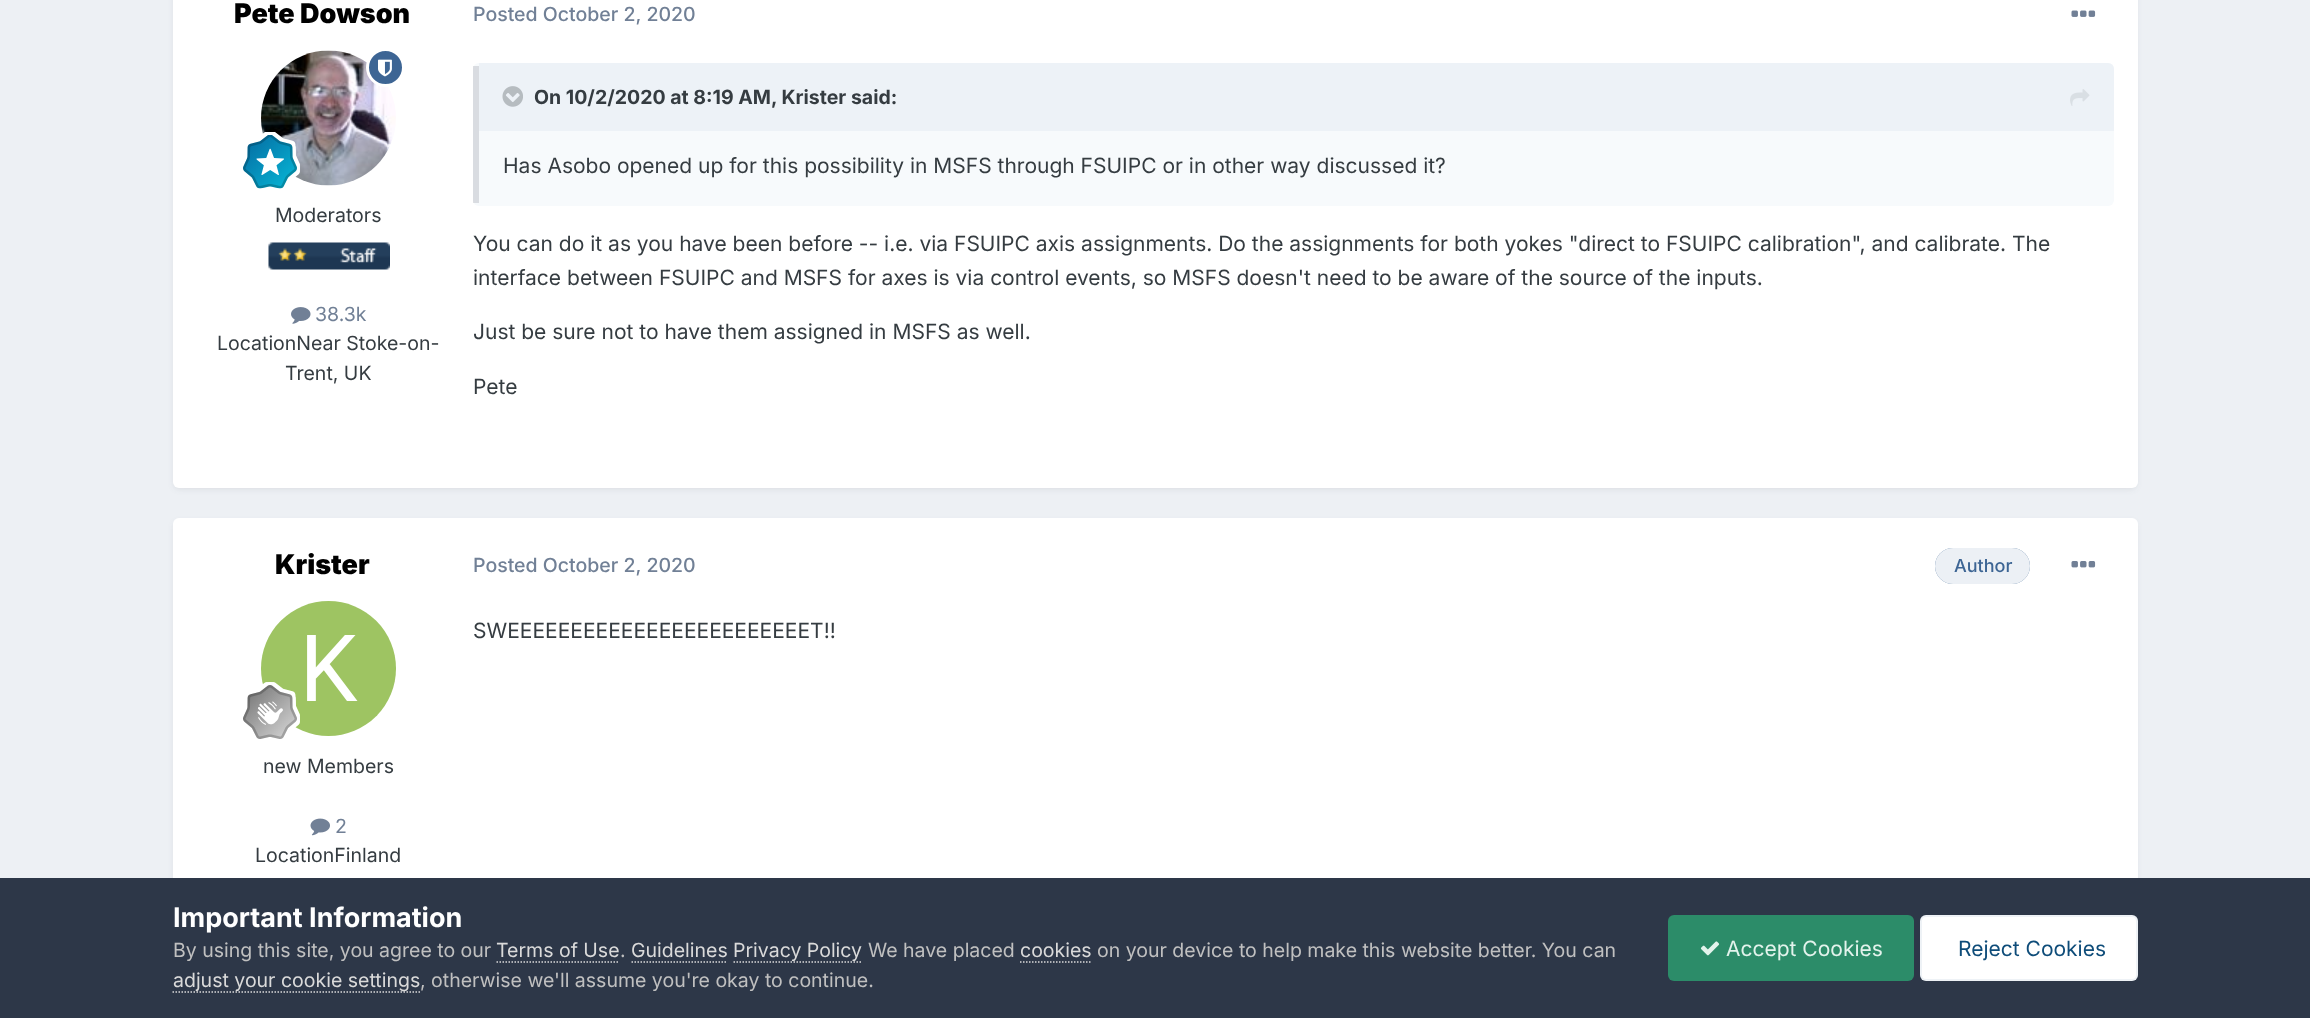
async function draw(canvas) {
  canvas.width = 2310;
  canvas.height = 1018;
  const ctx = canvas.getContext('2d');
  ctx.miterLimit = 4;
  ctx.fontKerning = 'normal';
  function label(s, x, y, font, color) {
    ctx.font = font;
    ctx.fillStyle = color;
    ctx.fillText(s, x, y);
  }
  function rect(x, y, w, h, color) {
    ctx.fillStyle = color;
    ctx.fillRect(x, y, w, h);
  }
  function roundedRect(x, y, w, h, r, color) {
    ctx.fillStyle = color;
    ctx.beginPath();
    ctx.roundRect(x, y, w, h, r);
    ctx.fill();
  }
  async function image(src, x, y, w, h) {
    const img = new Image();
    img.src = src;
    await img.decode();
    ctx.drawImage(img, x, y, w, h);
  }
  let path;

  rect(0, 0, 2310, 1018, '#edf0f4');
  ctx.fillStyle = '#2d37481a';
  ctx.filter = 'blur(3px)';
  ctx.beginPath();
  ctx.roundRect(174, -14, 1962, 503, 5);
  ctx.fill();
  ctx.filter = 'none';
  roundedRect(173, -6, 1965, 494, 6, '#fff');
  label('Pete Dowson', 234, 23, '900 27px Inter', '#000');
  await image('assets/img2.png', 261, 50, 135, 136);
  ctx.fillStyle = '#3d6594';
  ctx.beginPath();
  ctx.arc(385.5, 67.5, 18, 0, 2 * Math.PI);
  ctx.fill();
  ctx.strokeStyle = '#fff';
  ctx.lineWidth = 3;
  ctx.stroke();
  await image('assets/img1.png', 378, 59, 14, 18);
  await image('assets/img3.png', 243, 132, 57, 57);
  label('Moderators', 275, 222, '19.5px Inter', '#353c41');
  await image('assets/img4.png', 268, 242, 122, 28);
  await image('assets/img5.png', 291, 307, 20, 17);
  label('38.3k', 315, 321, '19.5px Inter', '#718096');
  label('LocationNear Stoke-on-', 217, 350, '19.5px Inter', '#353c41');
  label('Trent, UK', 285, 380, '19.5px Inter', '#353c41');
  label('Posted October 2, 2020', 473, 21, '500 19.5px Inter', '#718096');
  await image('assets/img6.png', 2071, 10, 25, 7);
  roundedRect(473, 63, 1641, 143, 6, '#f7fafc');
  rect(473, 66, 6, 137, '#2d374826');
  ctx.fillStyle = '#edf2f7';
  ctx.beginPath();
  ctx.roundRect(479, 63, 1635, 68, [0, 6, 0, 0]);
  ctx.fill();
  await image('assets/img7.png', 502, 86, 21, 21);
  label('On 10/2/2020 at 8:19 AM, Krister said:', 534, 104, 'bold 19.5px Inter', '#353c41');
  await image('assets/img8.png', 2070, 89, 20, 17);
  label('Has Asobo opened up for this possibility in MSFS through FSUIPC or in other way discussed it?', 503, 173, '21px Inter', '#353c41');
  label('You can do it as you have been before -- i.e. via FSUIPC axis assignments. Do the assignments for both yokes "direct to FSUIPC calibration", and calibrate. The', 473, 251, '21px Inter', '#353c41');
  label('interface between FSUIPC and MSFS for axes is via control events, so MSFS doesn\'t need to be aware of the source of the inputs.', 473, 285, '21px Inter', '#353c41');
  label('Just be sure not to have them assigned in MSFS as well.', 473, 339, '21px Inter', '#353c41');
  label('Pete', 473, 394, '21px Inter', '#353c41');
  ctx.fillStyle = '#2d37481a';
  ctx.filter = 'blur(3px)';
  ctx.beginPath();
  ctx.roundRect(174, 522, 1962, 380, 5);
  ctx.fill();
  ctx.filter = 'none';
  roundedRect(173, 518, 1965, 382, 6, '#fff');
  label('Krister', 275, 574, '900 27px Inter', '#000');
  await image('assets/img9.png', 261, 601, 135, 135);
  await image('assets/img10.png', 243, 682, 57, 57);
  label('new Members', 263, 773, '19.5px Inter', '#353c41');
  await image('assets/img11.png', 310, 818, 20, 18);
  label('2', 335, 833, '19.5px Inter', '#718096');
  label('LocationFinland', 255, 862, '19.5px Inter', '#353c41');
  label('Posted October 2, 2020', 473, 572, '500 19.5px Inter', '#718096');
  roundedRect(1935, 548, 95, 36, 18, '#3d6594');
  roundedRect(1935, 548, 95, 36, 18, '#ffffffe6');
  label('Author', 1954, 572, '500 18px Inter', '#3d6594');
  await image('assets/img12.png', 2071, 561, 25, 7);
  label('SWEEEEEEEEEEEEEEEEEEEEEEEET!!', 473, 638, '21px Inter', '#353c41');
  rect(0, 878, 2310, 140, '#2d3748');
  label('Important Information', 173, 927, 'bold 27px Inter', '#fff');
  label('By using this site, you agree to our', 173, 957, '19.5px Inter', '#c0c0c0');
  label('Terms of Use', 496, 957, '19.5px Inter', '#dadada');
  path = new Path2D('M496.5 962H619.5');
  ctx.strokeStyle = '#dadada';
  ctx.lineWidth = 1.5;
  ctx.setLineDash([1.5, 1.5]);
  ctx.stroke(path);
  label('.', 620, 957, '19.5px Inter', '#c0c0c0');
  label('Guidelines', 631, 957, '19.5px Inter', '#dadada');
  path = new Path2D('M631.5 962H727.5');
  ctx.stroke(path);
  path = new Path2D('M733.5 962H862.5');
  ctx.stroke(path);
  label('Privacy Policy', 733, 957, '19.5px Inter', '#dadada');
  label('We have placed', 868, 957, '19.5px Inter', '#c0c0c0');
  label('cookies', 1020, 957, '19.5px Inter', '#dadada');
  path = new Path2D('M1020 962H1092');
  ctx.stroke(path);
  label('on your device to help make this website better. You can', 1097, 957, '19.5px Inter', '#c0c0c0');
  path = new Path2D('M172.5 992H420');
  ctx.stroke(path);
  label('adjust your cookie settings', 173, 987, '19.5px Inter', '#dadada');
  label(', otherwise we\'ll assume you\'re okay to continue.', 420, 987, '19.5px Inter', '#c0c0c0');
  roundedRect(1668, 915, 246, 66, 6, '#2c8c69');
  await image('assets/img13.png', 1700, 941, 20, 15);
  label('Accept Cookies', 1726, 956, '21px Inter', '#e3f3ec');
  roundedRect(1920, 915, 218, 66, 6, '#fff');
  ctx.beginPath();
  ctx.roundRect(1921, 916, 216, 64, 5);
  ctx.strokeStyle = '#0e4c7912';
  ctx.lineWidth = 2;
  ctx.setLineDash([]);
  ctx.stroke();
  label('Reject Cookies', 1958, 956, '21px Inter', '#0e4c79');
}

draw(document.querySelector('canvas'));
